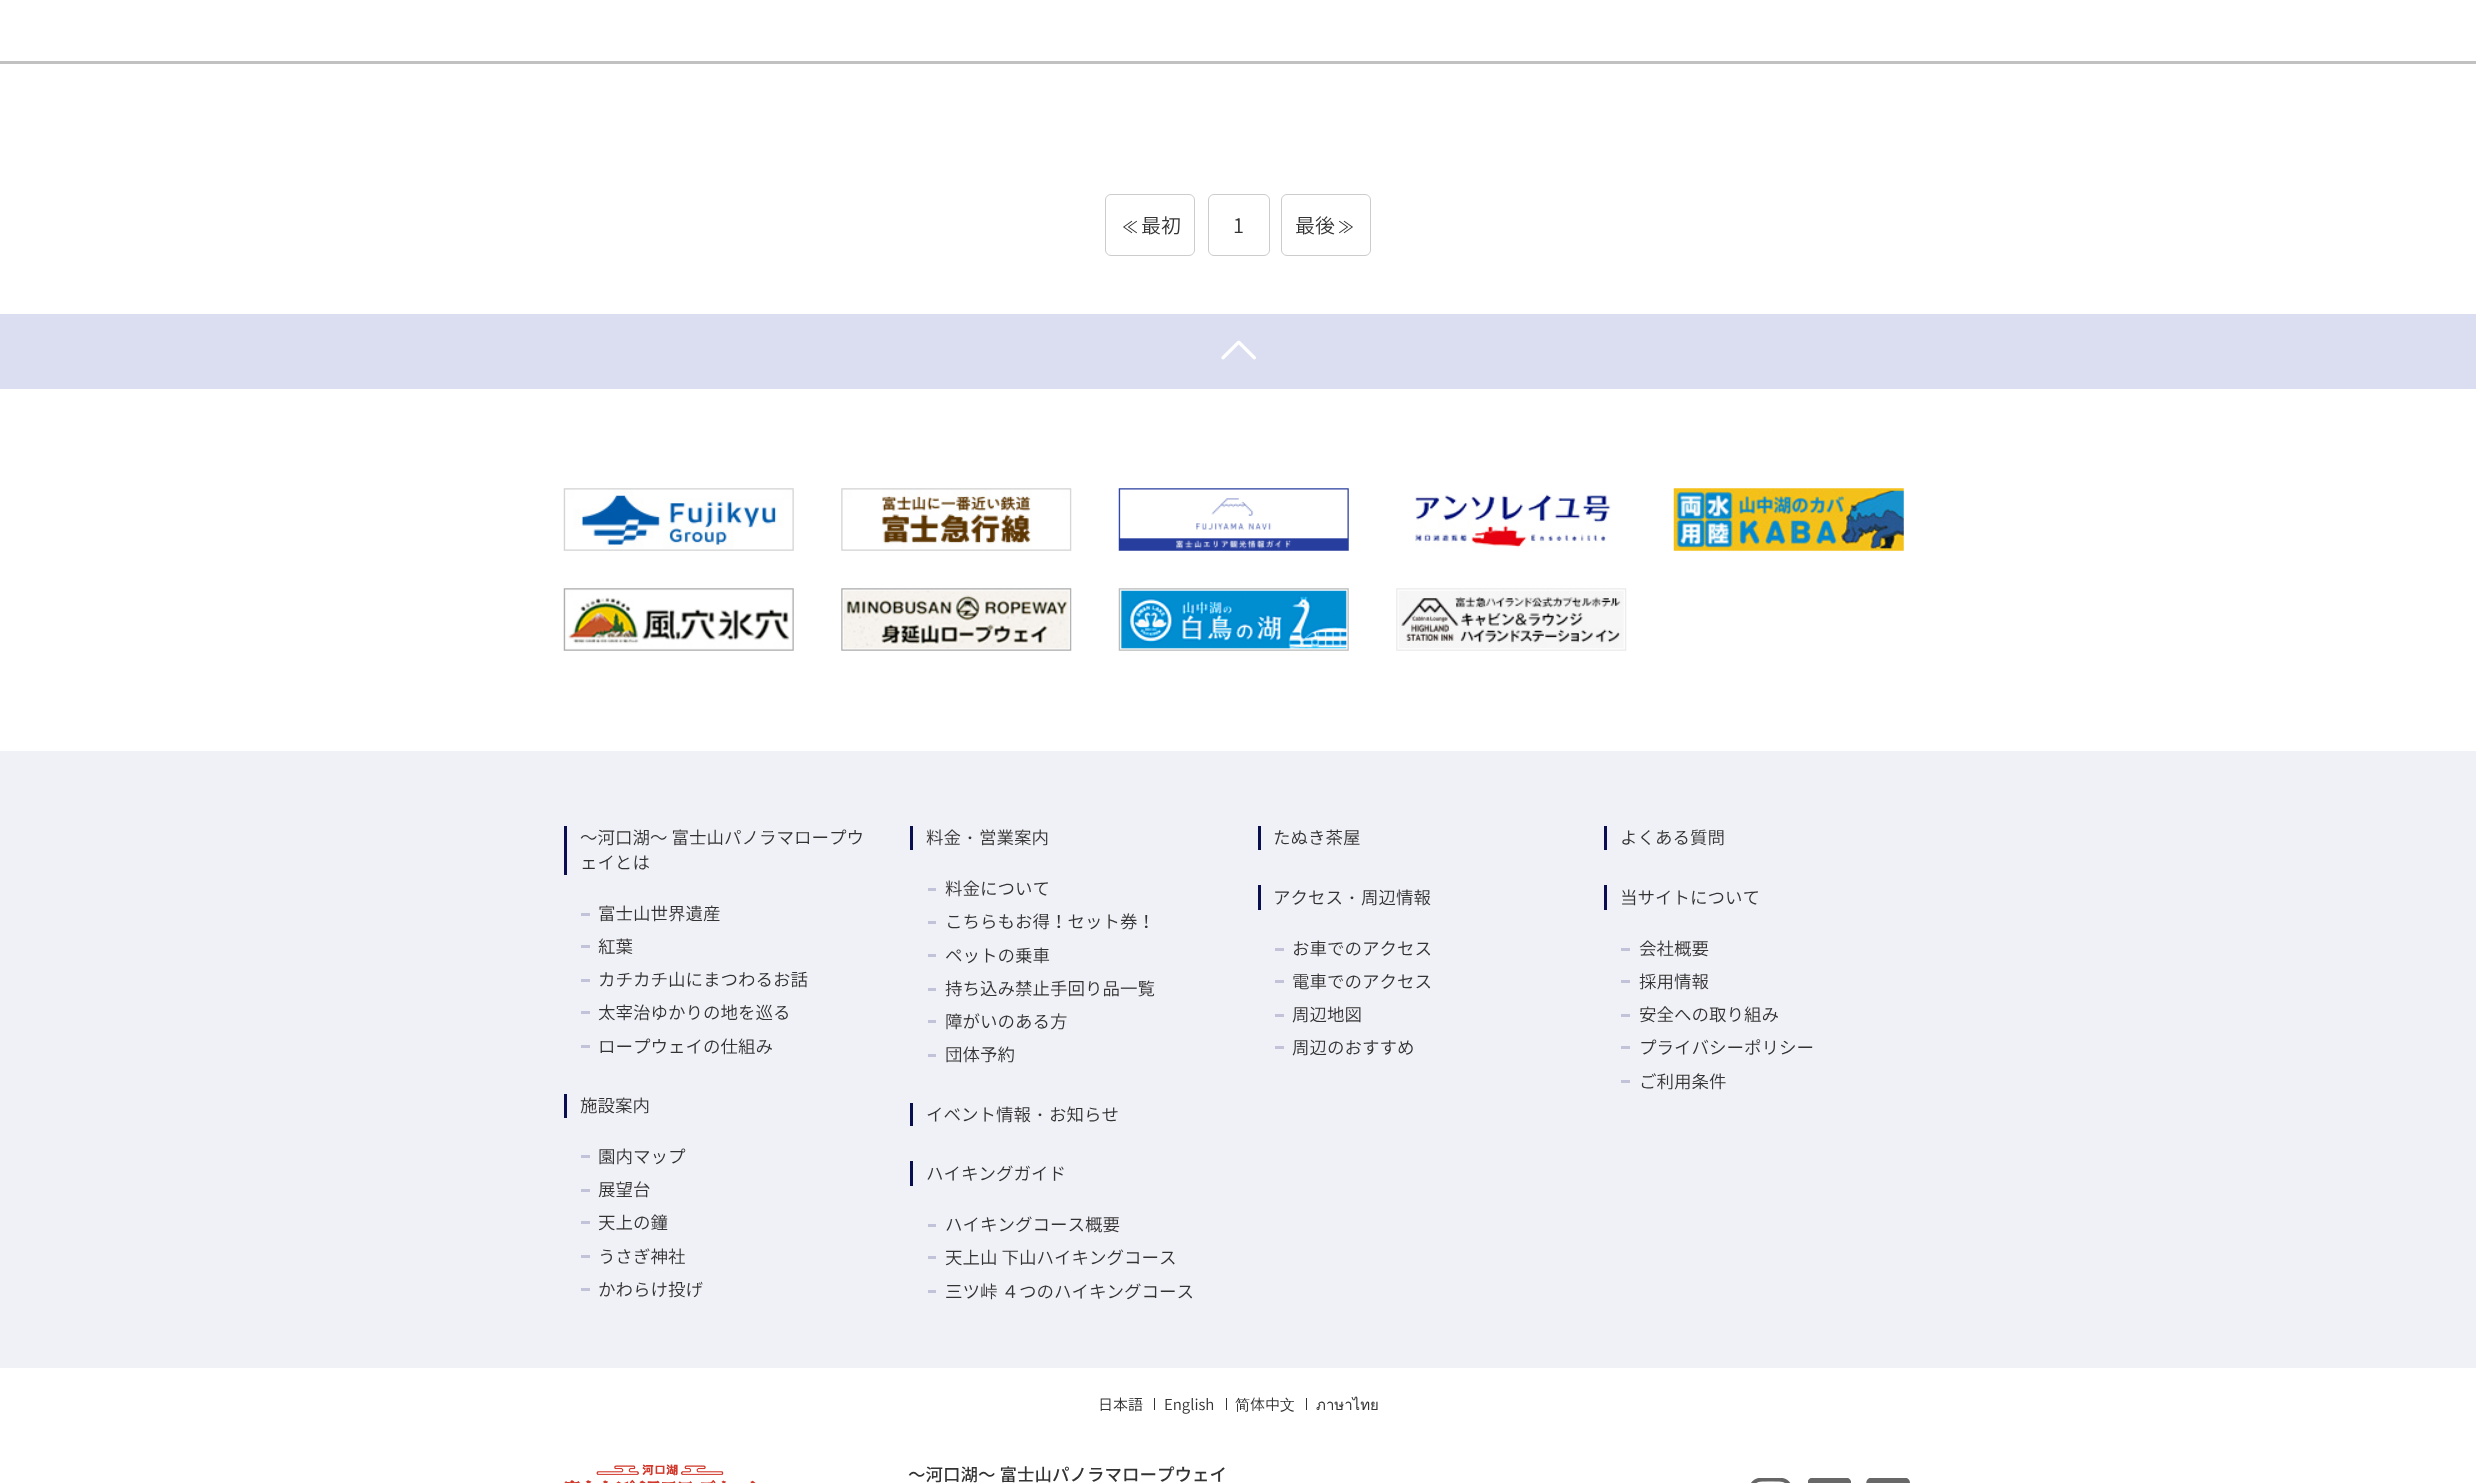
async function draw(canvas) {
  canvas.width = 2476;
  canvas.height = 1483;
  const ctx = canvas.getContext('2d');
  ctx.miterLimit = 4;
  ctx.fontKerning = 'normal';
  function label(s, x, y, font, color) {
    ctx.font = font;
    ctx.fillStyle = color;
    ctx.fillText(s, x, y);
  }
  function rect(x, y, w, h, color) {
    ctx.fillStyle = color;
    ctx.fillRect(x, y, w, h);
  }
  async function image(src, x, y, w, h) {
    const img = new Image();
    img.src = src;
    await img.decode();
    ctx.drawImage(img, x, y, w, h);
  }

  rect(0, 0, 2476, 1483, '#fff');
  rect(0, 61, 2476, 3, '#c1c1c1');
  ctx.beginPath();
  ctx.roundRect(1105.5, 194.5, 89, 61, 5.5);
  ctx.strokeStyle = '#ccc';
  ctx.stroke();
  label('≪', 1122, 233, '300 16px Noto Sans CJK JP', '#333');
  label('最初', 1141, 233, '300 20px Noto Sans CJK JP', '#333');
  ctx.beginPath();
  ctx.roundRect(1208.5, 194.5, 61, 61, 5.5);
  ctx.stroke();
  label('1', 1233, 233, '300 20px Noto Sans CJK JP', '#333');
  ctx.beginPath();
  ctx.roundRect(1281.5, 194.5, 89, 61, 5.5);
  ctx.stroke();
  label('最後', 1295, 233, '300 20px Noto Sans CJK JP', '#333');
  label('≫', 1338, 233, '300 16px Noto Sans CJK JP', '#333');
  rect(0, 314, 2476, 75, '#dbdef0');
  await image('assets/img1.png', 1221, 340, 35, 20);
  await image('assets/img2.png', 563, 488, 231, 63);
  await image('assets/img3.png', 841, 488, 231, 63);
  await image('assets/img4.png', 1118, 488, 231, 63);
  await image('assets/img5.png', 1415, 494, 196, 54);
  await image('assets/img6.png', 1673, 488, 231, 63);
  await image('assets/img7.png', 563, 588, 231, 63);
  await image('assets/img8.png', 841, 588, 231, 63);
  await image('assets/img9.png', 1118, 588, 231, 63);
  await image('assets/img10.png', 1396, 588, 231, 63);
  rect(0, 751, 2476, 617, '#f0f1f7');
  rect(564, 826, 3, 49, '#090e50');
  label('～河口湖～ 富士山パノラマロープウ', 580, 844, '300 17.5px Noto Sans CJK JP', '#333');
  label('ェイとは', 580, 869, '300 17.5px Noto Sans CJK JP', '#333');
  rect(581, 913, 9, 3, '#c2c3d9');
  label('富士山世界遺産', 598, 920, '300 17.5px Noto Sans CJK JP', '#333');
  rect(581, 945, 9, 3, '#c2c3d9');
  label('紅葉', 598, 953, '300 17.5px Noto Sans CJK JP', '#333');
  rect(581, 979, 9, 3, '#c2c3d9');
  label('カチカチ山にまつわるお話', 598, 986, '300 17.5px Noto Sans CJK JP', '#333');
  rect(581, 1011, 9, 3, '#c2c3d9');
  label('太宰治ゆかりの地を巡る', 598, 1019, '300 17.5px Noto Sans CJK JP', '#333');
  rect(581, 1045, 9, 3, '#c2c3d9');
  label('ロープウェイの仕組み', 598, 1053, '300 17.5px Noto Sans CJK JP', '#333');
  rect(564, 1094, 3, 24, '#090e50');
  label('施設案内', 580, 1112, '300 17.5px Noto Sans CJK JP', '#333');
  rect(581, 1155, 9, 3, '#c2c3d9');
  label('園内マップ', 598, 1163, '300 17.5px Noto Sans CJK JP', '#333');
  rect(581, 1189, 9, 3, '#c2c3d9');
  label('展望台', 598, 1196, '300 17.5px Noto Sans CJK JP', '#333');
  rect(581, 1221, 9, 3, '#c2c3d9');
  label('天上の鐘', 598, 1229, '300 17.5px Noto Sans CJK JP', '#333');
  rect(581, 1255, 9, 3, '#c2c3d9');
  label('うさぎ神社', 598, 1263, '300 17.5px Noto Sans CJK JP', '#333');
  rect(581, 1288, 9, 3, '#c2c3d9');
  label('かわらけ投げ', 598, 1296, '300 17.5px Noto Sans CJK JP', '#333');
  rect(910, 826, 3, 24, '#090e50');
  label('料金', 926, 844, '300 17.5px Noto Sans CJK JP', '#333');
  label('・', 961, 844, '500 17.5px WenQuanYi Zen Hei', '#333');
  label('営業案内', 979, 844, '300 17.5px Noto Sans CJK JP', '#333');
  rect(928, 888, 8, 3, '#c2c3d9');
  label('料金について', 945, 895, '300 17.5px Noto Sans CJK JP', '#333');
  rect(928, 921, 8, 3, '#c2c3d9');
  label('こちらもお得！セット券！', 945, 928, '300 17.5px Noto Sans CJK JP', '#333');
  rect(928, 954, 8, 3, '#c2c3d9');
  label('ペットの乗車', 945, 962, '300 17.5px Noto Sans CJK JP', '#333');
  rect(928, 988, 8, 3, '#c2c3d9');
  label('持ち込み禁止手回り品一覧', 945, 995, '300 17.5px Noto Sans CJK JP', '#333');
  rect(928, 1020, 8, 3, '#c2c3d9');
  label('障がいのある方', 945, 1028, '300 17.5px Noto Sans CJK JP', '#333');
  rect(928, 1054, 8, 3, '#c2c3d9');
  label('団体予約', 945, 1061, '300 17.5px Noto Sans CJK JP', '#333');
  rect(910, 1103, 3, 23, '#090e50');
  label('イベント情報', 926, 1121, '300 17.5px Noto Sans CJK JP', '#333');
  label('・', 1031, 1121, '500 17.5px WenQuanYi Zen Hei', '#333');
  label('お知らせ', 1049, 1121, '300 17.5px Noto Sans CJK JP', '#333');
  rect(910, 1161, 3, 25, '#090e50');
  label('ハイキングガイド', 926, 1180, '300 17.5px Noto Sans CJK JP', '#333');
  rect(928, 1224, 8, 3, '#c2c3d9');
  label('ハイキングコース概要', 945, 1231, '300 17.5px Noto Sans CJK JP', '#333');
  rect(928, 1256, 8, 3, '#c2c3d9');
  label('天上山 下山ハイキングコース', 945, 1264, '300 17.5px Noto Sans CJK JP', '#333');
  rect(928, 1290, 8, 3, '#c2c3d9');
  label('三ツ峠 ４つのハイキングコース', 945, 1298, '300 17.5px Noto Sans CJK JP', '#333');
  rect(1258, 826, 3, 24, '#090e50');
  label('たぬき茶屋', 1273, 844, '300 17.5px Noto Sans CJK JP', '#333');
  rect(1258, 885, 3, 25, '#090e50');
  label('アクセス', 1273, 904, '300 17.5px Noto Sans CJK JP', '#333');
  label('・', 1343, 904, '500 17.5px WenQuanYi Zen Hei', '#333');
  label('周辺情報', 1361, 904, '300 17.5px Noto Sans CJK JP', '#333');
  rect(1275, 948, 9, 3, '#c2c3d9');
  label('お車でのアクセス', 1292, 955, '300 17.5px Noto Sans CJK JP', '#333');
  rect(1275, 980, 9, 3, '#c2c3d9');
  label('電車でのアクセス', 1292, 988, '300 17.5px Noto Sans CJK JP', '#333');
  rect(1275, 1014, 9, 3, '#c2c3d9');
  label('周辺地図', 1292, 1021, '300 17.5px Noto Sans CJK JP', '#333');
  rect(1275, 1046, 9, 3, '#c2c3d9');
  label('周辺のおすすめ', 1292, 1054, '300 17.5px Noto Sans CJK JP', '#333');
  rect(1604, 826, 3, 24, '#090e50');
  label('よくある質問', 1620, 844, '300 17.5px Noto Sans CJK JP', '#333');
  rect(1604, 885, 3, 25, '#090e50');
  label('当サイトについて', 1620, 904, '300 17.5px Noto Sans CJK JP', '#333');
  rect(1621, 948, 9, 3, '#c2c3d9');
  label('会社概要', 1639, 955, '300 17.5px Noto Sans CJK JP', '#333');
  rect(1621, 980, 9, 3, '#c2c3d9');
  label('採用情報', 1639, 988, '300 17.5px Noto Sans CJK JP', '#333');
  rect(1621, 1014, 9, 3, '#c2c3d9');
  label('安全への取り組み', 1639, 1021, '300 17.5px Noto Sans CJK JP', '#333');
  rect(1621, 1046, 9, 3, '#c2c3d9');
  label('プライバシーポリシー', 1639, 1054, '300 17.5px Noto Sans CJK JP', '#333');
  rect(1621, 1080, 9, 3, '#c2c3d9');
  label('ご利用条件', 1639, 1088, '300 17.5px Noto Sans CJK JP', '#333');
  label('日本語', 1098, 1410, '300 15px Noto Sans CJK JP', '#333');
  rect(1154, 1398, 1, 12, '#333');
  label('English', 1164, 1410, '300 15px Noto Sans CJK JP', '#333');
  rect(1226, 1398, 1, 12, '#333');
  label('简', 1235, 1410, '500 15px WenQuanYi Zen Hei', '#333');
  label('体中', 1250, 1410, '300 15px Noto Sans CJK JP', '#333');
  label('⽂', 1280, 1410, '500 15px WenQuanYi Zen Hei', '#333');
  rect(1306, 1398, 1, 12, '#333');
  label('ภาษาไทย', 1316, 1410, '15px Loma', '#333');
  await image('assets/img11.png', 564, 1464, 192, 19);
  label('～河口湖～ 富士山パノラマロープウェイ', 908, 1481, '500 17.5px Noto Sans CJK JP', '#333');
  await image('assets/img12.png', 1751, 1478, 40, 5);
  await image('assets/img13.png', 1808, 1478, 43, 5);
  await image('assets/img14.png', 1866, 1478, 44, 5);
}

draw(document.querySelector('canvas'));
